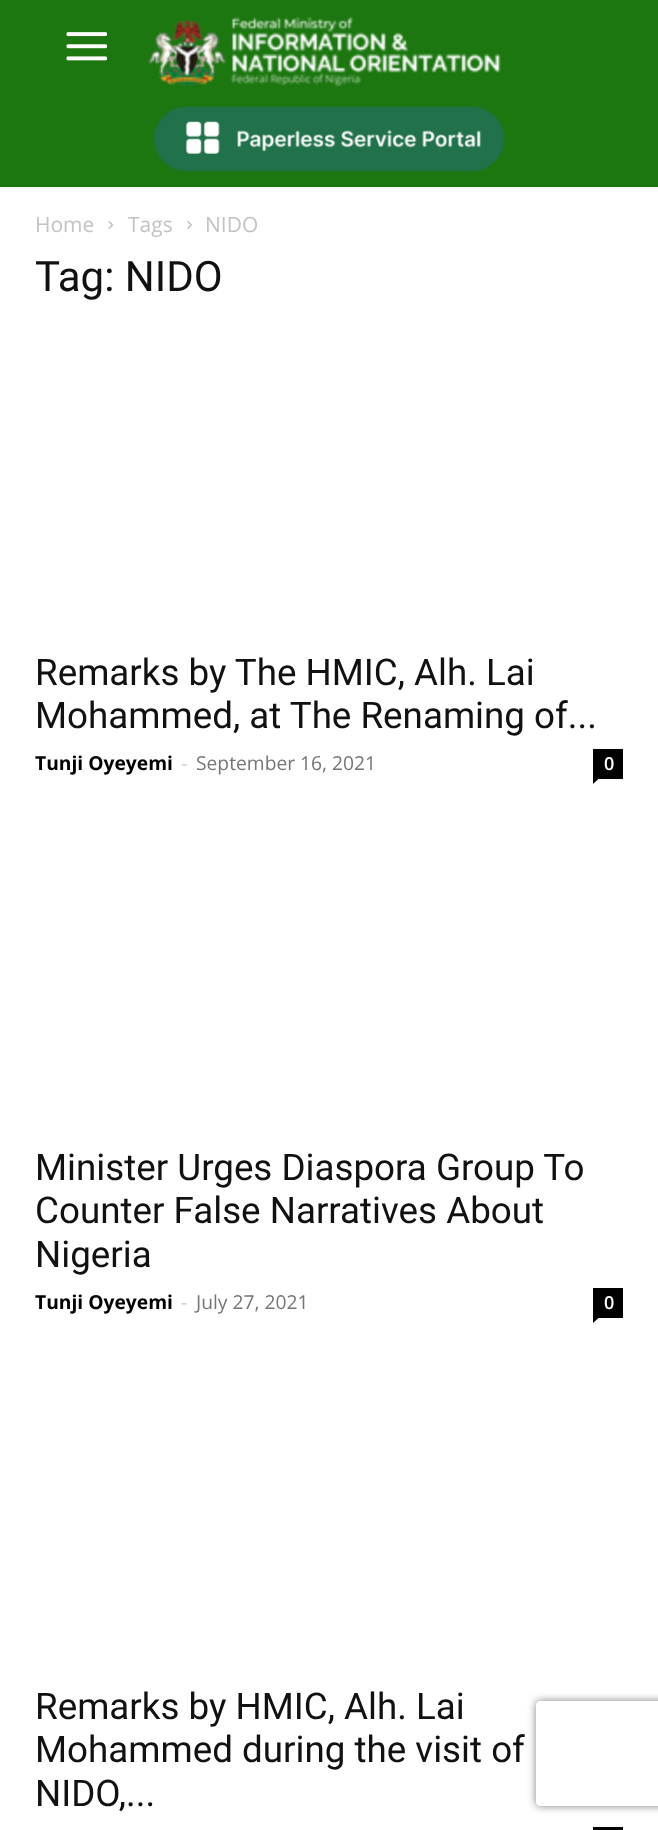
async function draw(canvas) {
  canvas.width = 658;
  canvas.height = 1830;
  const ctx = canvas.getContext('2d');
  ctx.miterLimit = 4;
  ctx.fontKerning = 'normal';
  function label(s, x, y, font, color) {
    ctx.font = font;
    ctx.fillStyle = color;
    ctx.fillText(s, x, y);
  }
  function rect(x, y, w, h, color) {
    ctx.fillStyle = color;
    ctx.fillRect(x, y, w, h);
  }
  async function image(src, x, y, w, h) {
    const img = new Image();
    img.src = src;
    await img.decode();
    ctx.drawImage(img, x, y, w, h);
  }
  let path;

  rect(0, 0, 658, 1830, '#fff');
  rect(0, 0, 658, 187, '#1d7711');
  await image('assets/img1.png', 66, 32, 41, 29);
  await image('assets/img2.png', 148, 16, 353, 71);
  await image('assets/img3.png', 153, 106, 352, 66);
  label('Home', 35, 232, '21px Open Sans', '#c3c3c3');
  await image('assets/img4.png', 108, 221, 6, 8);
  label('Tags', 128, 232, '21px Open Sans', '#c3c3c3');
  await image('assets/img5.png', 187, 221, 5, 8);
  label('NIDO', 205, 232, '21px Open Sans', '#c3c3c3');
  label('Tag: NIDO', 35, 291, '42px Roboto', '#111');
  label('Remarks by The HMIC, Alh. Lai', 35, 685, '36.75px Roboto', '#111');
  label('Mohammed, at The Renaming of...', 35, 728, '36.75px Roboto', '#111');
  label('Tunji Oyeyemi', 35, 770, 'bold 19.25px Open Sans', '#000');
  label('-', 181, 770, '19.25px Open Sans', '#ccc');
  label('September 16, 2021', 196, 770, '19.25px Open Sans', '#767676');
  rect(593, 749, 30, 30, '#000');
  label('0', 604, 770, '600 18px Open Sans', '#fff');
  ctx.fillStyle = '#000';
  path = new Path2D('M593 779H598.5L593 784Z');
  ctx.fill(path);
  label('Minister Urges Diaspora Group To', 35, 1180, '36.75px Roboto', '#111');
  label('Counter False Narratives About', 35, 1223, '36.75px Roboto', '#111');
  label('Nigeria', 35, 1267, '36.75px Roboto', '#111');
  label('Tunji Oyeyemi', 35, 1309, 'bold 19.25px Open Sans', '#000');
  label('-', 181, 1309, '19.25px Open Sans', '#ccc');
  label('July 27, 2021', 196, 1309, '19.25px Open Sans', '#767676');
  rect(593, 1288, 30, 30, '#000');
  label('0', 604, 1309, '600 18px Open Sans', '#fff');
  ctx.fillStyle = '#000';
  path = new Path2D('M593 1318H598.5L593 1323Z');
  ctx.fill(path);
  label('Remarks by HMIC, Alh. Lai', 35, 1719, '36.75px Roboto', '#111');
  label('Mohammed during the visit of', 35, 1762, '36.75px Roboto', '#111');
  label('NIDO,...', 35, 1806, '36.75px Roboto', '#111');
  rect(593, 1827, 30, 3, '#000');
  ctx.save();
  path = new Path2D('M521 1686H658V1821H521ZM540 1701H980C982 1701 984 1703 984 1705V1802C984 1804 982 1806 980 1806H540C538 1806 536 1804 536 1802V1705C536 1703 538 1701 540 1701Z');
  ctx.clip(path, 'evenodd');
  ctx.fillStyle = '#808080';
  ctx.filter = 'blur(4.5px)';
  ctx.beginPath();
  ctx.roundRect(536, 1701, 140, 105, 4);
  ctx.fill();
  ctx.filter = 'none';
  ctx.restore();
}

draw(document.querySelector('canvas'));
